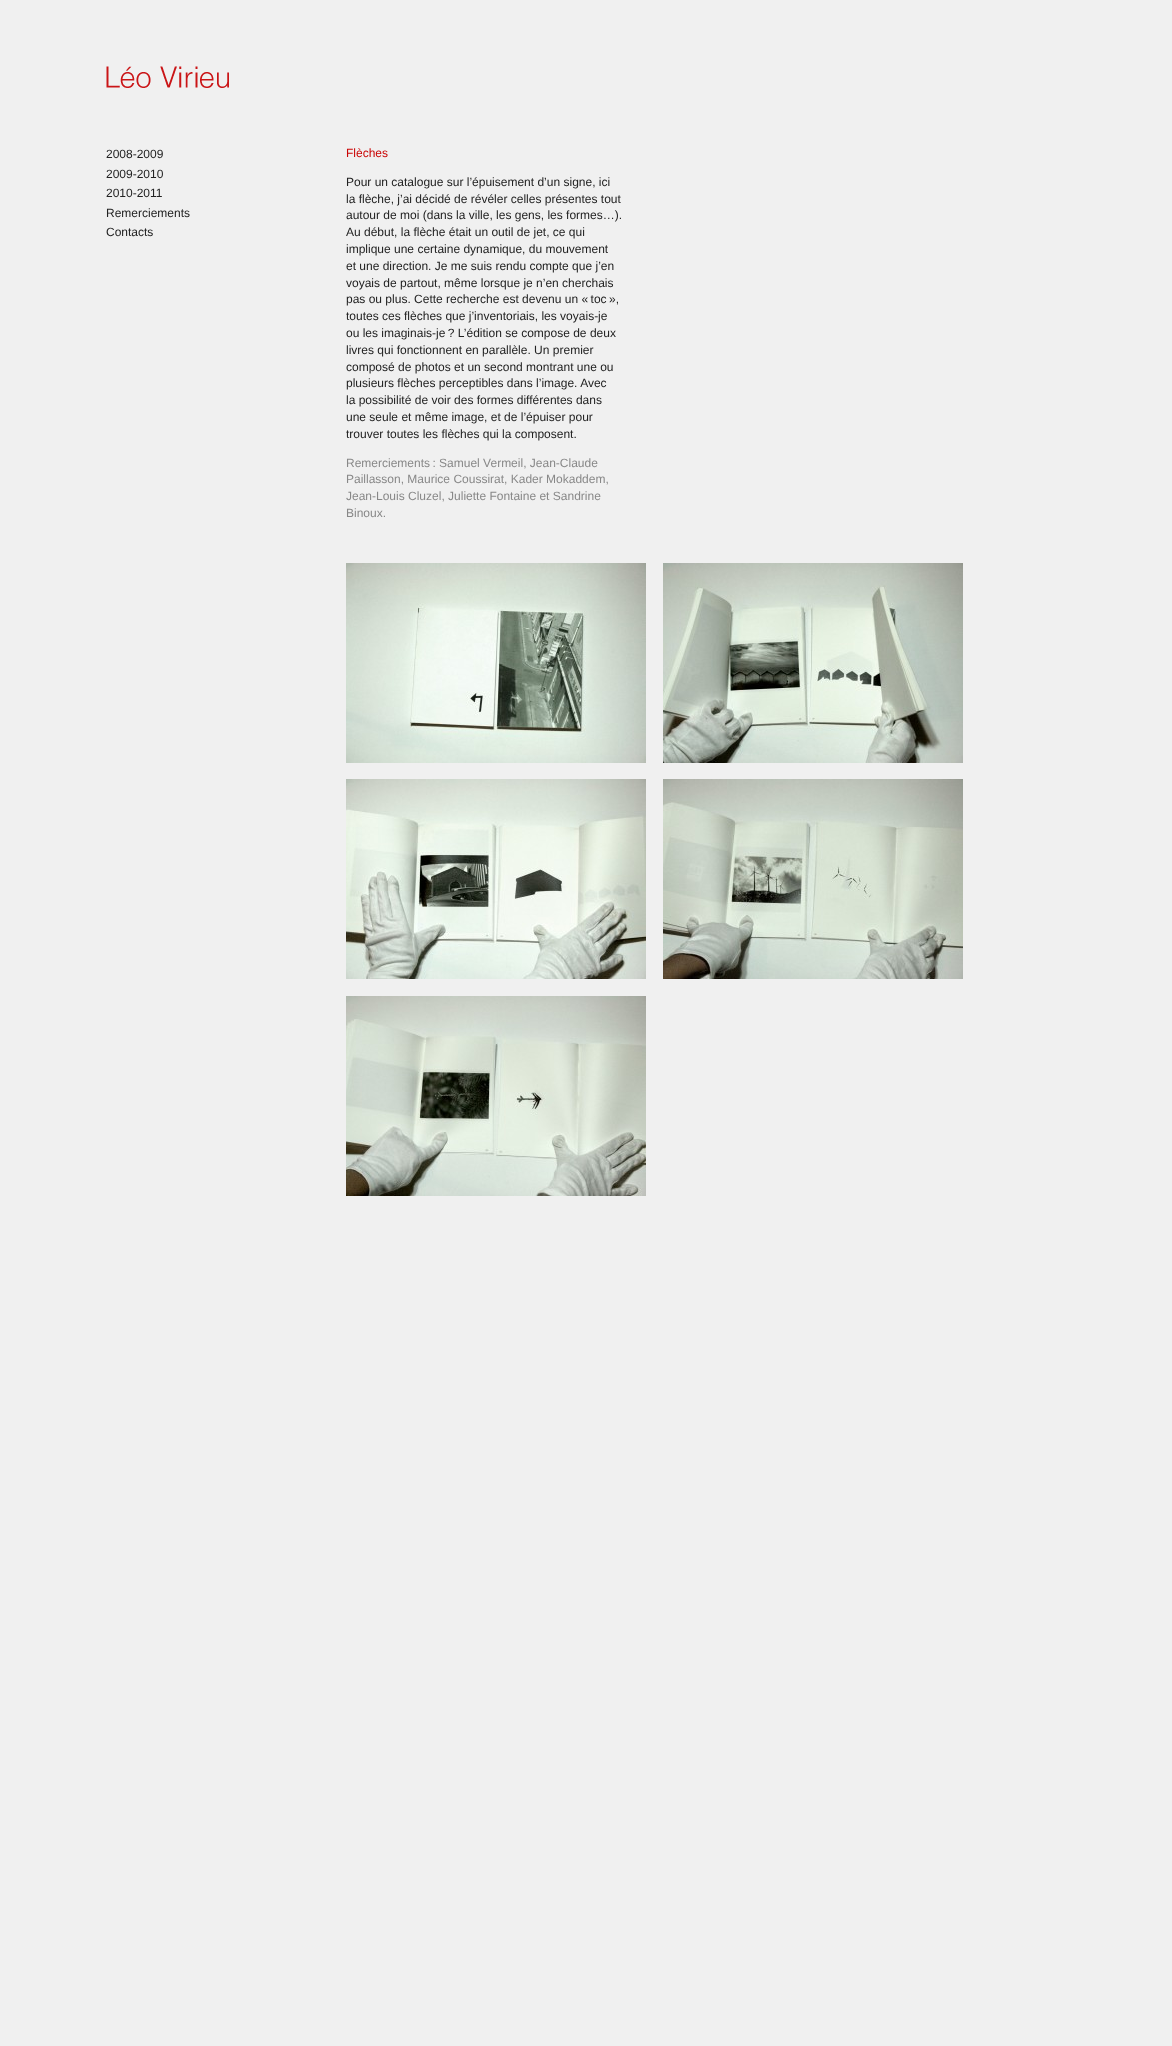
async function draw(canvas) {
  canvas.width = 1172;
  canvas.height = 2046;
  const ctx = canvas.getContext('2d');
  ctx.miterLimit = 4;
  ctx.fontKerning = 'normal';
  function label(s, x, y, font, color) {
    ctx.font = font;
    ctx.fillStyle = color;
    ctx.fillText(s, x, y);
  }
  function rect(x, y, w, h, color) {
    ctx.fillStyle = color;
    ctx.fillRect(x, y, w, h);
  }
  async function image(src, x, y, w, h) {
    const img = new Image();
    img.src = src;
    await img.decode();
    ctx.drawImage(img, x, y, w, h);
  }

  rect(0, 0, 1172, 2046, '#f0f0f0');
  await image('assets/img1.png', 106, 66, 123, 22);
  label('2008-2009', 106, 158, '12px Liberation Sans', '#222');
  label('2009-2010', 106, 178, '12px Liberation Sans', '#222');
  label('2010-2011', 106, 197, '12px Liberation Sans', '#222');
  label('Remerciements', 106, 217, '12px Liberation Sans', '#222');
  label('Contacts', 106, 236, '12px Liberation Sans', '#222');
  label('Flèches', 346, 157, '12px Liberation Sans', '#ca0505');
  label('Pour un catalogue sur l’épuisement d’un signe, ici', 346, 186, '12px Liberation Sans', '#222');
  label('la flèche, j’ai décidé de révéler celles présentes tout', 346, 203, '12px Liberation Sans', '#222');
  label('autour de moi (dans la ville, les gens, les formes…).', 346, 219, '12px Liberation Sans', '#222');
  label('Au début, la flèche était un outil de jet, ce qui', 346, 236, '12px Liberation Sans', '#222');
  label('implique une certaine dynamique, du mouvement', 346, 253, '12px Liberation Sans', '#222');
  label('et une direction. Je me suis rendu compte que j’en', 346, 270, '12px Liberation Sans', '#222');
  label('voyais de partout, même lorsque je n’en cherchais', 346, 287, '12px Liberation Sans', '#222');
  label('pas ou plus. Cette recherche est devenu un « toc »,', 346, 303, '12px Liberation Sans', '#222');
  label('toutes ces flèches que j’inventoriais, les voyais-je', 346, 320, '12px Liberation Sans', '#222');
  label('ou les imaginais-je ? L’édition se compose de deux', 346, 337, '12px Liberation Sans', '#222');
  label('livres qui fonctionnent en parallèle. Un premier', 346, 354, '12px Liberation Sans', '#222');
  label('composé de photos et un second montrant une ou', 346, 371, '12px Liberation Sans', '#222');
  label('plusieurs flèches perceptibles dans l’image. Avec', 346, 387, '12px Liberation Sans', '#222');
  label('la possibilité de voir des formes différentes dans', 346, 404, '12px Liberation Sans', '#222');
  label('une seule et même image, et de l’épuiser pour', 346, 421, '12px Liberation Sans', '#222');
  label('trouver toutes les flèches qui la composent.', 346, 438, '12px Liberation Sans', '#222');
  label('Remerciements : Samuel Vermeil, Jean-Claude', 346, 467, '12px Liberation Sans', '#888');
  label('Paillasson, Maurice Coussirat, Kader Mokaddem,', 346, 483, '12px Liberation Sans', '#888');
  label('Jean-Louis Cluzel, Juliette Fontaine et Sandrine', 346, 500, '12px Liberation Sans', '#888');
  label('Binoux.', 346, 517, '12px Liberation Sans', '#888');
  await image('assets/img2.png', 346, 563, 300, 200);
  await image('assets/img3.png', 663, 563, 300, 200);
  await image('assets/img4.png', 346, 779, 300, 200);
  await image('assets/img5.png', 663, 779, 300, 200);
  await image('assets/img6.png', 346, 996, 300, 200);
}

draw(document.querySelector('canvas'));
